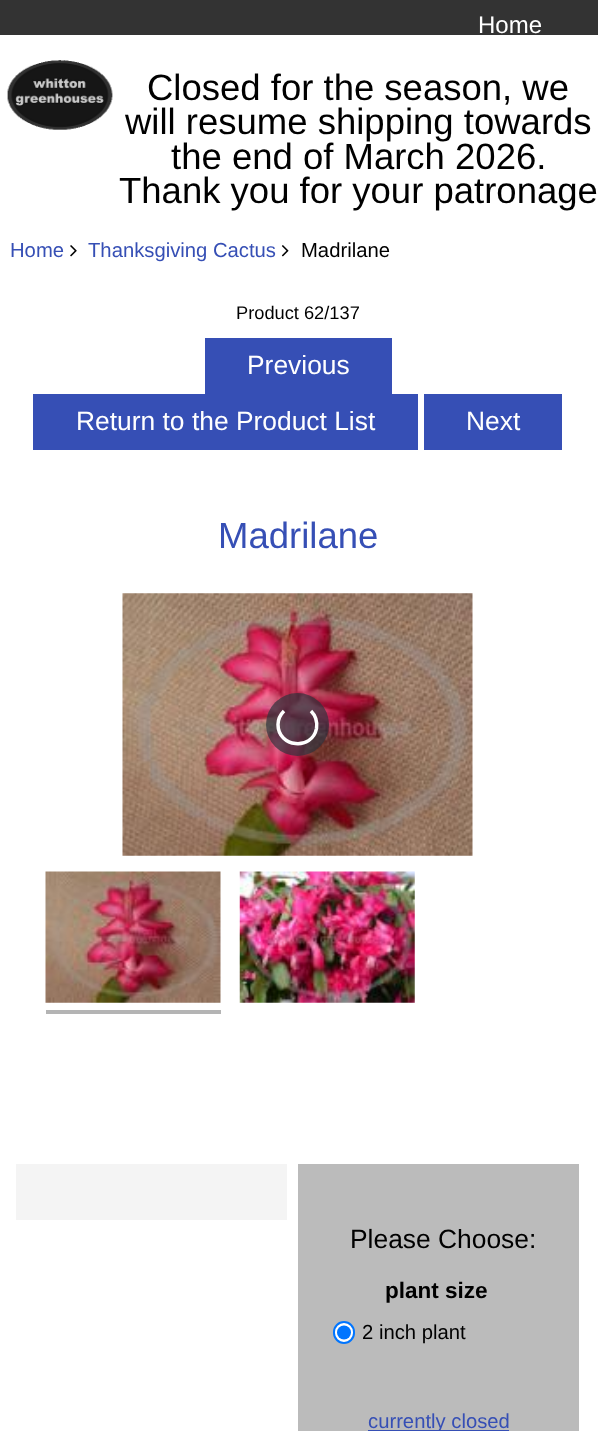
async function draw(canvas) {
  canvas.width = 598;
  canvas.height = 1431;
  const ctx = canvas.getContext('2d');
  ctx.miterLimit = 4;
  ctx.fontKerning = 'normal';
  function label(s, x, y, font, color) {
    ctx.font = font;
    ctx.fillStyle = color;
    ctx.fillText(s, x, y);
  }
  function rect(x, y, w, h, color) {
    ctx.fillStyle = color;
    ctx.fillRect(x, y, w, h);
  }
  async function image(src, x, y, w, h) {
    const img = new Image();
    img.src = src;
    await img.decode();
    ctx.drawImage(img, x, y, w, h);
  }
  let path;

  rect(0, 0, 598, 1431, '#fff');
  rect(0, 0, 598, 35, '#333');
  label('Home', 478, 33, '24px Liberation Sans', '#fff');
  await image('assets/img1.png', 7, 60, 106, 70);
  label('Closed for the season, we', 147, 100, '36.5px Liberation Sans', '#000');
  label('will resume shipping towards', 125, 134, '36.5px Liberation Sans', '#000');
  label('the end of March 2026.', 171, 169, '36.5px Liberation Sans', '#000');
  label('Thank you for your patronage', 119, 203, '36.5px Liberation Sans', '#000');
  label('Home', 10, 257, '20.25px Liberation Sans', '#364fb5');
  await image('assets/img2.png', 70, 245, 7, 12);
  label('Thanksgiving Cactus', 88, 257, '20.25px Liberation Sans', '#364fb5');
  await image('assets/img3.png', 281, 245, 8, 12);
  label('Madrilane', 301, 257, '20.25px Liberation Sans', '#000');
  label('Product 62/137', 236, 319, '18.25px Liberation Sans', '#000');
  rect(205, 338, 187, 56, '#364fb5');
  label('Previous', 247, 374, '26.4px Liberation Sans', '#fff');
  rect(33, 394, 385, 56, '#364fb5');
  label('Return to the Product List', 76, 430, '26.4px Liberation Sans', '#fff');
  rect(424, 394, 138, 56, '#364fb5');
  label('Next', 466, 430, '26.4px Liberation Sans', '#fff');
  label('Madrilane', 218, 548, '36.5px Liberation Sans', '#364fb5');
  await image('assets/img4.png', 122, 593, 351, 263);
  ctx.fillStyle = '#31333db3';
  ctx.beginPath();
  ctx.arc(297.5, 724.5, 31.5, 0, 2 * Math.PI);
  ctx.fill();
  path = new Path2D('M311 711C315.5 715.5 317.5 722 316.5 728.5C312 751 278 747.5 278 724.5C278 719.5 280.5 714.5 284 711');
  ctx.strokeStyle = '#fff';
  ctx.lineWidth = 3.5;
  ctx.stroke(path);
  await image('assets/img5.png', 45, 871, 176, 132);
  rect(46, 1010, 175, 4, '#b4b4b4');
  await image('assets/img6.png', 239, 871, 176, 132);
  rect(16, 1164, 271, 56, '#f4f4f4');
  rect(298, 1164, 281, 267, '#bbb');
  label('Please Choose:', 350, 1248, '26.4px Liberation Sans', '#000');
  label('plant size', 385, 1298, 'bold 22.5px Liberation Sans', '#000');
  ctx.fillStyle = '#fff';
  ctx.beginPath();
  ctx.roundRect(334, 1322, 20, 21, 10);
  ctx.fill();
  ctx.strokeStyle = '#0075ff';
  ctx.lineWidth = 2;
  ctx.stroke();
  ctx.fillStyle = '#0075ff';
  ctx.beginPath();
  ctx.arc(344, 1332.5, 7, 0, 2 * Math.PI);
  ctx.fill();
  label('2 inch plant', 362, 1339, '20.25px Liberation Sans', '#000');
  rect(368, 1430, 141, 1, '#364fb5');
  label('currently closed', 368, 1428, '20.25px Liberation Sans', '#364fb5');
}

draw(document.querySelector('canvas'));
